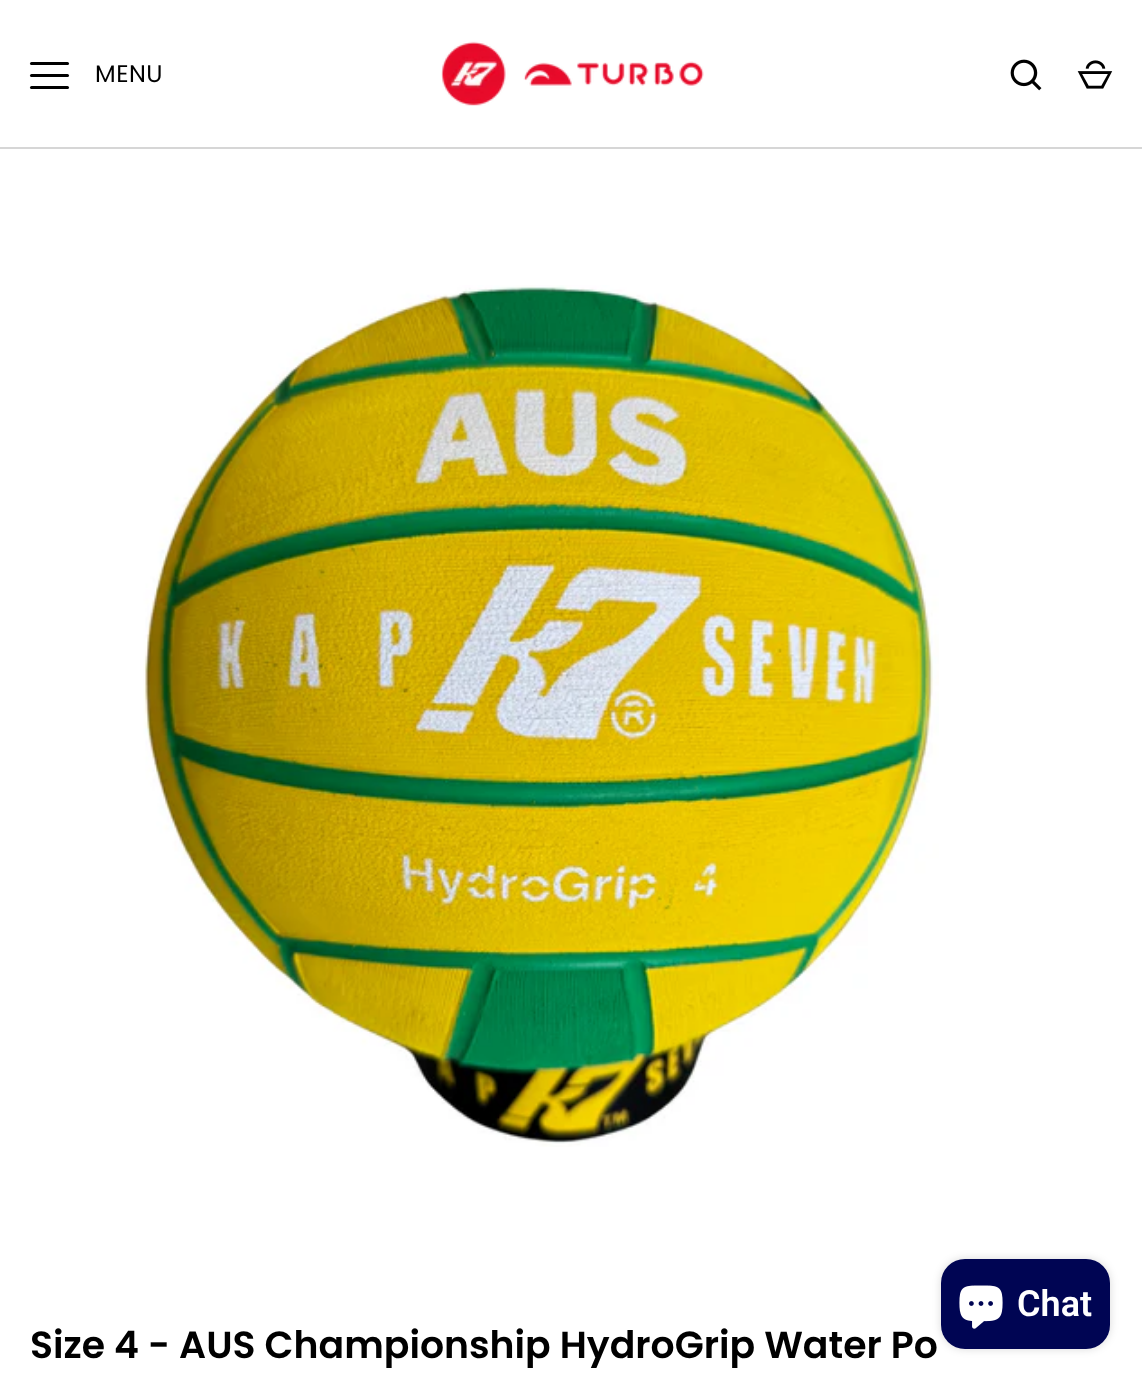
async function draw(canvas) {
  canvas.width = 1142;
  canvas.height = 1380;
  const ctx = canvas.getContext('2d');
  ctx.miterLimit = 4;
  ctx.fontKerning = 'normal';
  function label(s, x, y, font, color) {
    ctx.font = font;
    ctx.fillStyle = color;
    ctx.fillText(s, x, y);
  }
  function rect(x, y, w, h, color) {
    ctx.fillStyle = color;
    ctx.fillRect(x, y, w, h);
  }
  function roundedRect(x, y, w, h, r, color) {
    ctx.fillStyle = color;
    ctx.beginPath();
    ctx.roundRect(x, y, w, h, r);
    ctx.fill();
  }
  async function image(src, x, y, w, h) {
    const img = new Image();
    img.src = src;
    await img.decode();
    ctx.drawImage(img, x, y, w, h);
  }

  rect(0, 0, 1142, 1380, '#fff');
  roundedRect(30, 62, 39, 3, 1.5, '#000');
  roundedRect(30, 74, 39, 3, 1.5, '#000');
  roundedRect(30, 86, 39, 3, 1.5, '#000');
  ctx.letterSpacing = '0.5px';
  label('MENU', 95, 82, '24px Poppins', '#000');
  await image('assets/img1.png', 441, 41, 263, 65);
  await image('assets/img2.png', 1010, 59, 32, 32);
  await image('assets/img3.png', 1077, 60, 36, 29);
  rect(0, 147, 1142, 2, '#d6d6d6');
  ctx.fillStyle = '#00000026';
  ctx.filter = 'blur(4px)';
  ctx.beginPath();
  ctx.roundRect(941, 1259, 169, 90, 24);
  ctx.fill();
  ctx.filter = 'none';
  roundedRect(941, 1259, 169, 90, 24, '#000553');
  await image('assets/img4.png', 959, 1285, 44, 44);
  ctx.letterSpacing = '0px';
  label('Chat', 1017, 1316, '600 36px Roboto', '#fff');
  await image('assets/img5.png', 143, 285, 796, 862);
  label('Size 4 - AUS Championship HydroGrip Water Po', 30, 1358, '600 37.8px Poppins', '#000');
}

draw(document.querySelector('canvas'));
